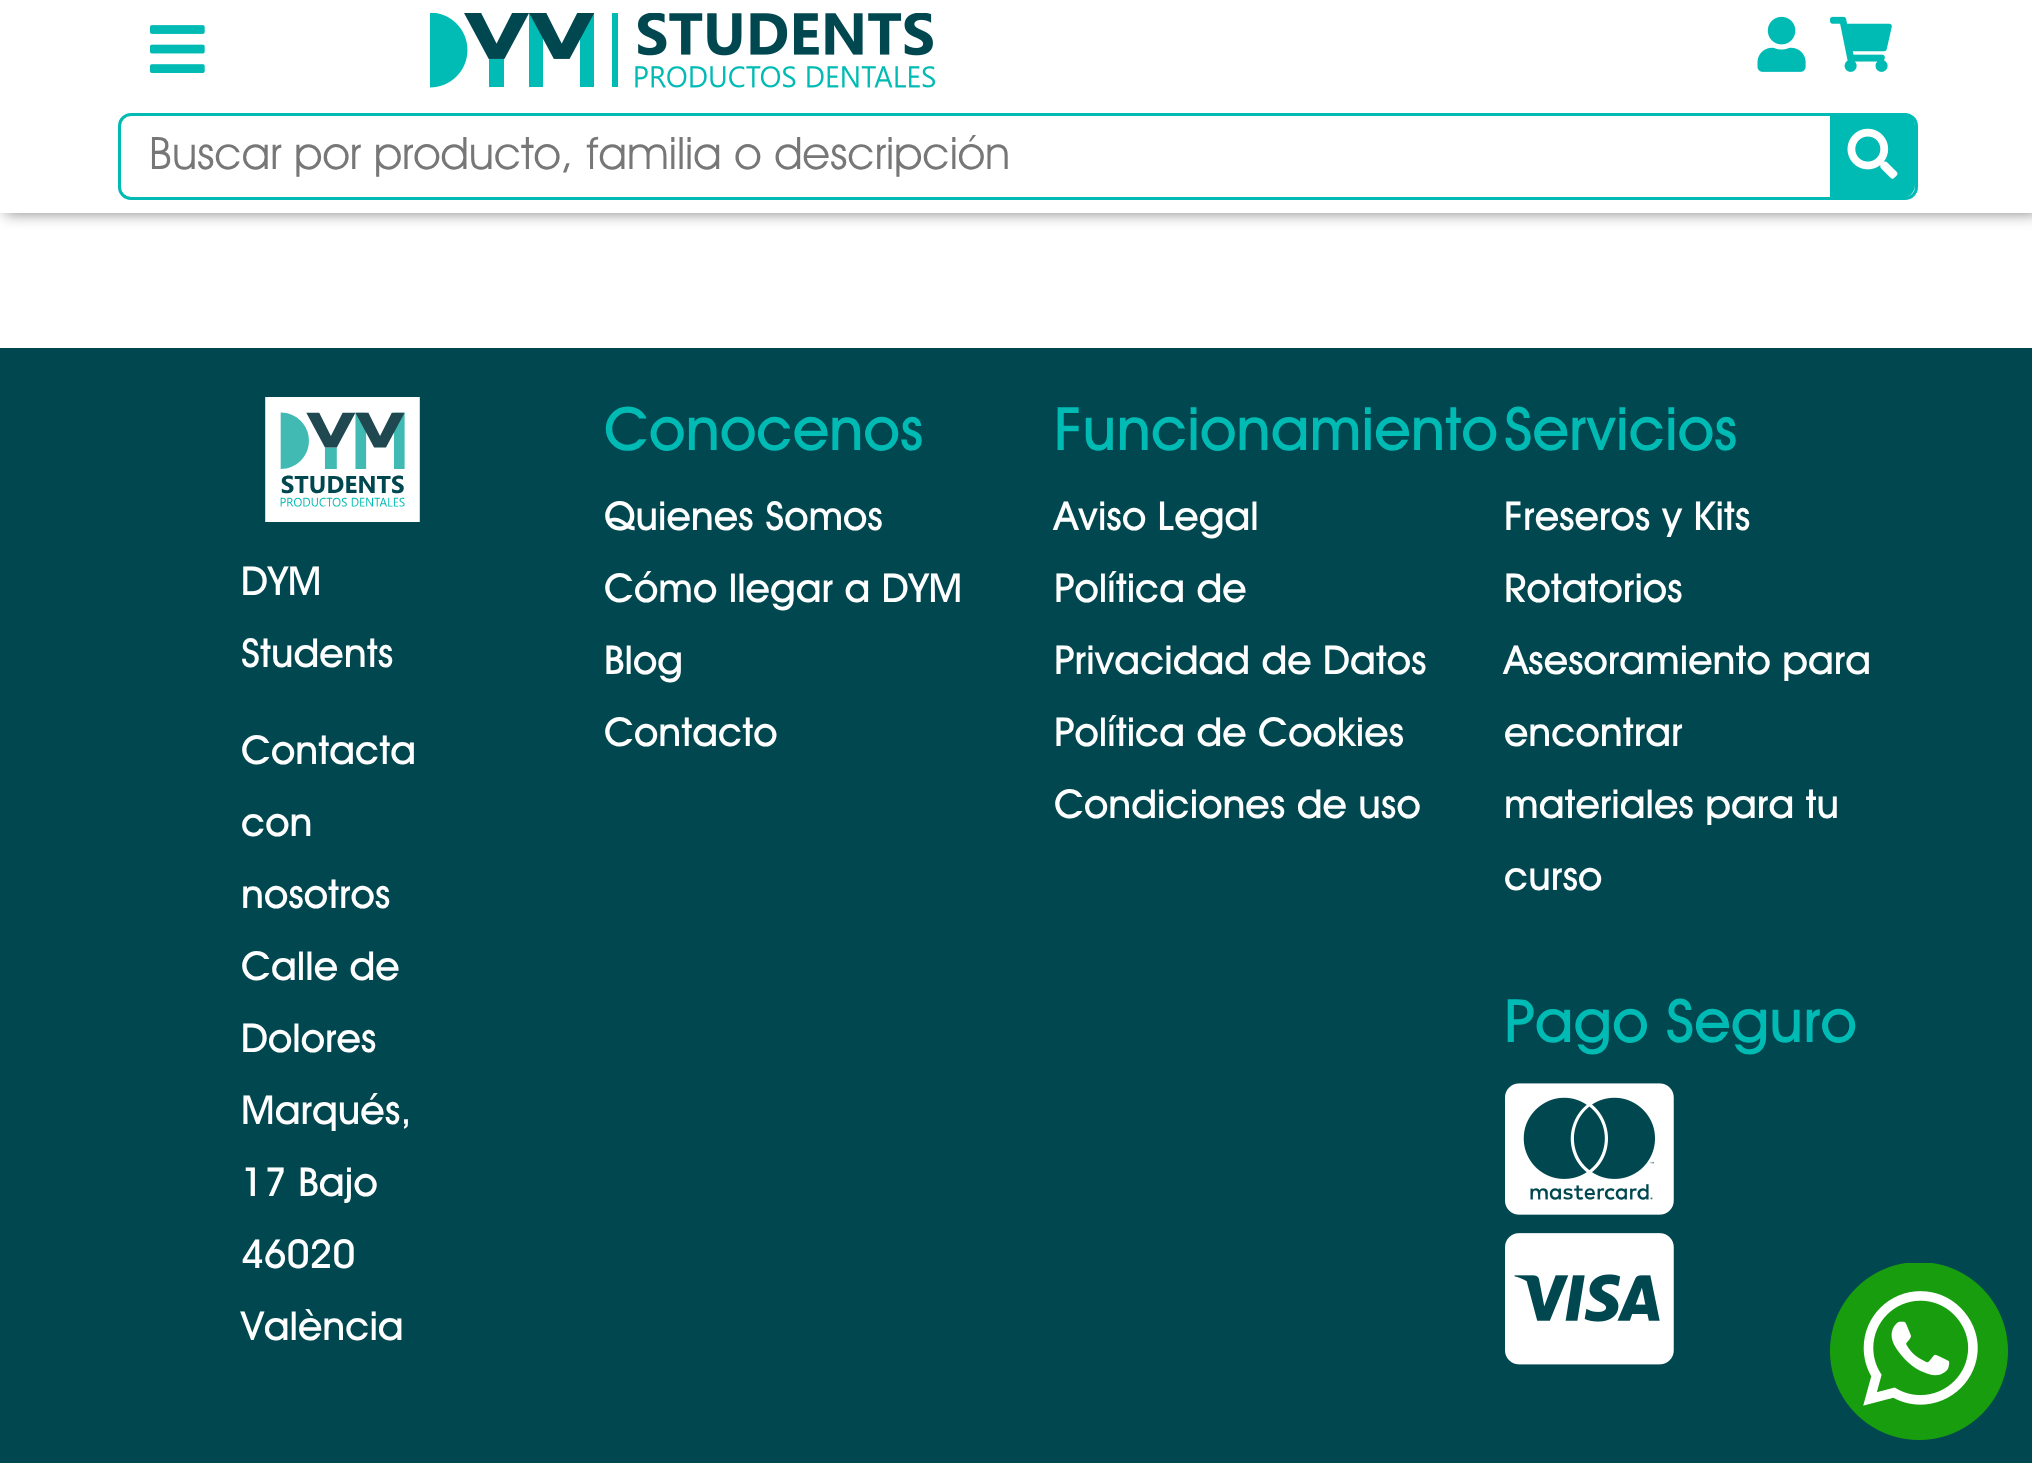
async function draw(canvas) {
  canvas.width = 2032;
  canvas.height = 1463;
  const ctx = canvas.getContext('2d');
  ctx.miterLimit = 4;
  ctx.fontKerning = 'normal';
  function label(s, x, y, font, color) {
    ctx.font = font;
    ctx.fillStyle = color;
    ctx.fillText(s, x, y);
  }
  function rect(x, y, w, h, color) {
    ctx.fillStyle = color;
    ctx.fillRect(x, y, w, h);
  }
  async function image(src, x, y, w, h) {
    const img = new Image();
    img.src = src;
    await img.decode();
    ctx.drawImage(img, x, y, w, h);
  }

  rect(0, 0, 2032, 1463, '#fff');
  ctx.fillStyle = '#00000080';
  ctx.filter = 'blur(7.5px)';
  ctx.beginPath();
  ctx.rect(5, 0, 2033, 213);
  ctx.fill();
  ctx.filter = 'none';
  rect(0, 0, 2032, 213, '#fff');
  await image('assets/img1.png', 150, 25, 55, 48);
  await image('assets/img2.png', 430, 13, 505, 75);
  await image('assets/img3.png', 1757, 16, 49, 56);
  await image('assets/img4.png', 1830, 16, 62, 56);
  ctx.beginPath();
  ctx.roundRect(119.5, 114.5, 1797, 84, 11.5);
  ctx.strokeStyle = '#00bab4';
  ctx.lineWidth = 3;
  ctx.stroke();
  ctx.save();
  ctx.beginPath();
  ctx.rect(150, 135, 1725, 45);
  ctx.clip();
  label('Buscar por producto, familia o descripción', 149, 169, '45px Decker', '#777');
  ctx.restore();
  ctx.fillStyle = '#00bab4';
  ctx.beginPath();
  ctx.roundRect(1830, 113, 85, 85, [0, 13, 13, 0]);
  ctx.fill();
  await image('assets/img5.png', 1847, 128, 51, 51);
  rect(0, 348, 2032, 1115, '#004750');
  await image('assets/img6.png', 265, 397, 155, 125);
  label('DYM', 241, 595, 'bold 40px Decker', '#fff');
  label('Students', 241, 667, 'bold 40px Decker', '#fff');
  label('Contacta', 241, 764, 'bold 40px Decker', '#fff');
  label('con', 241, 836, 'bold 40px Decker', '#fff');
  label('nosotros', 241, 908, 'bold 40px Decker', '#fff');
  label('Calle de', 241, 980, 'bold 40px Decker', '#fff');
  label('Dolores', 241, 1052, 'bold 40px Decker', '#fff');
  label('Marqués,', 241, 1124, 'bold 40px Decker', '#fff');
  label('17 Bajo', 241, 1196, 'bold 40px Decker', '#fff');
  label('46020', 241, 1268, 'bold 40px Decker', '#fff');
  label('València', 241, 1340, 'bold 40px Decker', '#fff');
  label('Conocenos', 604, 450, 'bold 60px Decker', '#00bab4');
  label('Quienes Somos', 604, 530, 'bold 40px Decker', '#fff');
  label('Cómo llegar a DYM', 604, 602, 'bold 40px Decker', '#fff');
  label('Blog', 604, 674, 'bold 40px Decker', '#fff');
  label('Contacto', 604, 746, 'bold 40px Decker', '#fff');
  label('Funcionamiento', 1054, 450, 'bold 60px Decker', '#00bab4');
  label('Aviso Legal', 1054, 530, 'bold 40px Decker', '#fff');
  label('Política de', 1054, 602, 'bold 40px Decker', '#fff');
  label('Privacidad de Datos', 1054, 674, 'bold 40px Decker', '#fff');
  label('Política de Cookies', 1054, 746, 'bold 40px Decker', '#fff');
  label('Condiciones de uso', 1054, 818, 'bold 40px Decker', '#fff');
  label('Servicios', 1504, 450, 'bold 60px Decker', '#00bab4');
  label('Freseros y Kits', 1504, 530, 'bold 40px Decker', '#fff');
  label('Rotatorios', 1504, 602, 'bold 40px Decker', '#fff');
  label('Asesoramiento para', 1504, 674, 'bold 40px Decker', '#fff');
  label('encontrar', 1504, 746, 'bold 40px Decker', '#fff');
  label('materiales para tu', 1504, 818, 'bold 40px Decker', '#fff');
  label('curso', 1504, 890, 'bold 40px Decker', '#fff');
  label('Pago Seguro', 1504, 1042, 'bold 60px Decker', '#00bab4');
  await image('assets/img7.png', 1505, 1083, 169, 132);
  await image('assets/img8.png', 1505, 1233, 169, 132);
  await image('assets/img9.png', 1830, 1263, 178, 177);
}

draw(document.querySelector('canvas'));
